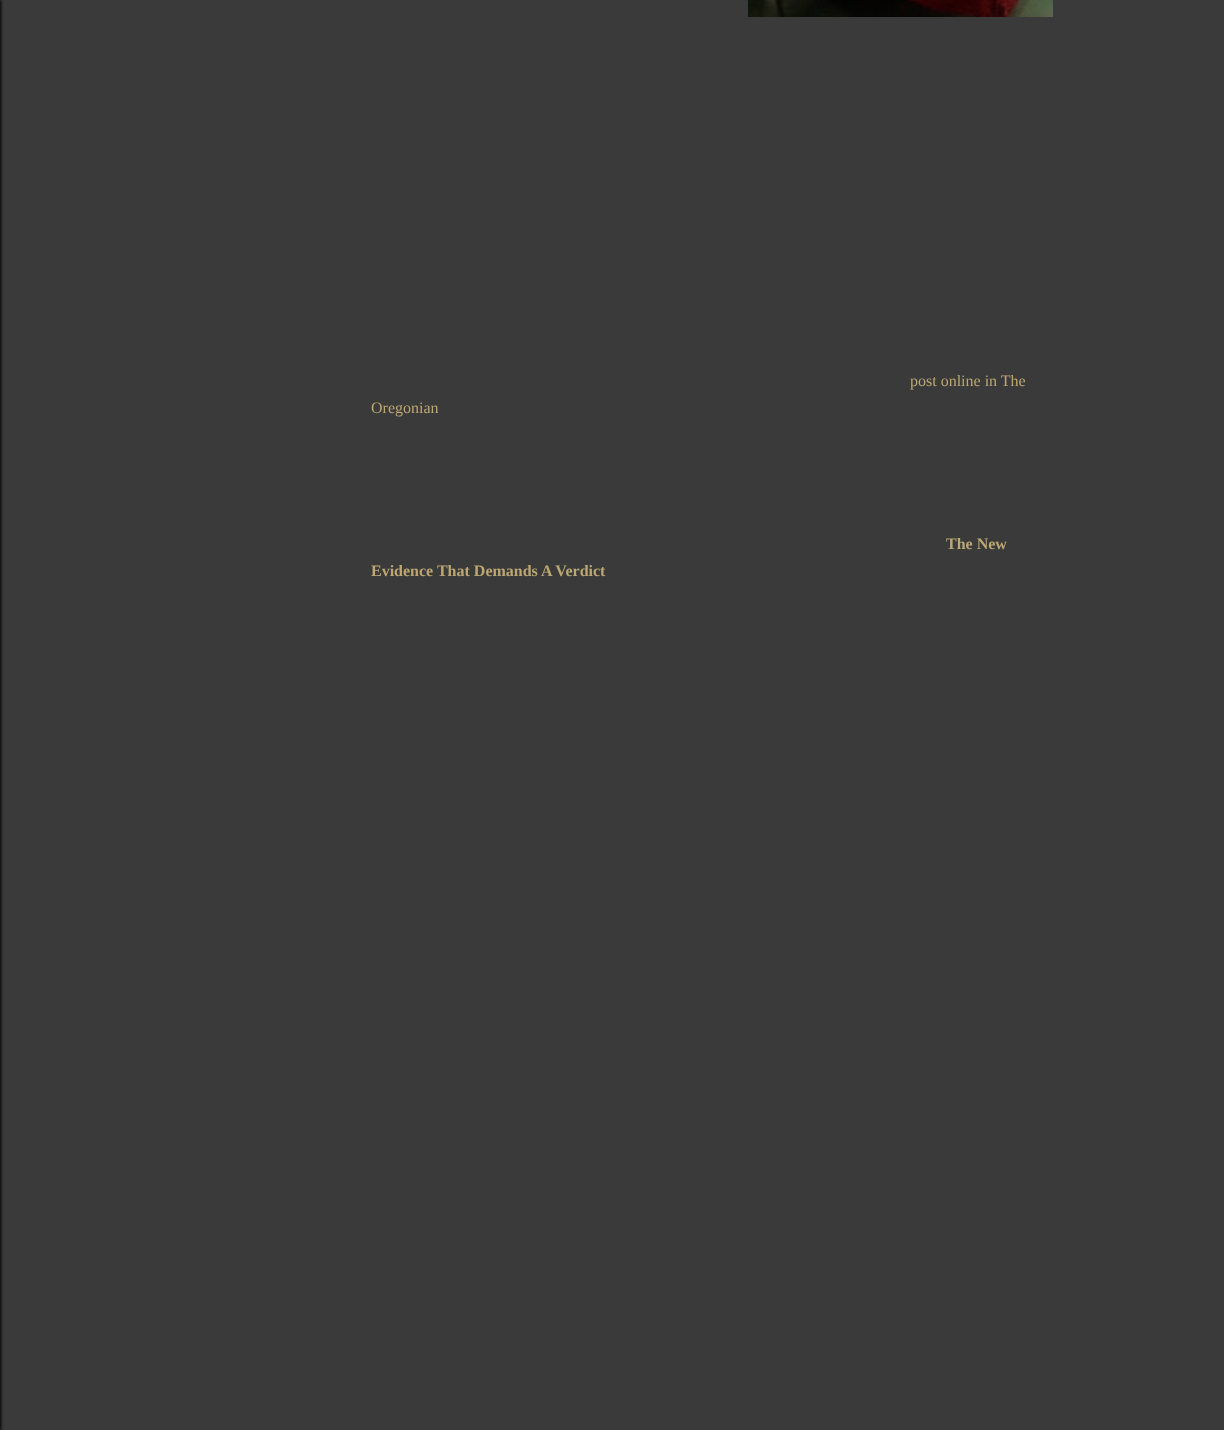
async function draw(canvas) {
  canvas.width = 1224;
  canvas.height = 1430;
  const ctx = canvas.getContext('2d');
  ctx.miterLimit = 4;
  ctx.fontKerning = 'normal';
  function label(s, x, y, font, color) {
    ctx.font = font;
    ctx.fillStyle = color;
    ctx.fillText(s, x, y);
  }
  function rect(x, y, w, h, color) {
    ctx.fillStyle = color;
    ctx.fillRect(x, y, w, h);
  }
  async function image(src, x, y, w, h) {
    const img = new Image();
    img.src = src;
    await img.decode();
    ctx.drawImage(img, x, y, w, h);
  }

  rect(0, 0, 1224, 1430, '#3a3a3a');
  ctx.fillStyle = '#000';
  ctx.filter = 'blur(1.5px)';
  ctx.beginPath();
  ctx.rect(-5, 0, 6, 1430);
  ctx.fill();
  ctx.filter = 'none';
  await image('assets/img1.png', 748, 0, 305, 17);
  label('post online in The', 910, 386, '16px Liberation Serif', '#bca772');
  label('Oregonian', 371, 413, '16px Liberation Serif', '#bca772');
  label('The New', 946, 549, 'bold 16px Liberation Serif', '#bca772');
  label('Evidence That Demands A Verdict', 371, 576, 'bold 16px Liberation Serif', '#bca772');
}

draw(document.querySelector('canvas'));
